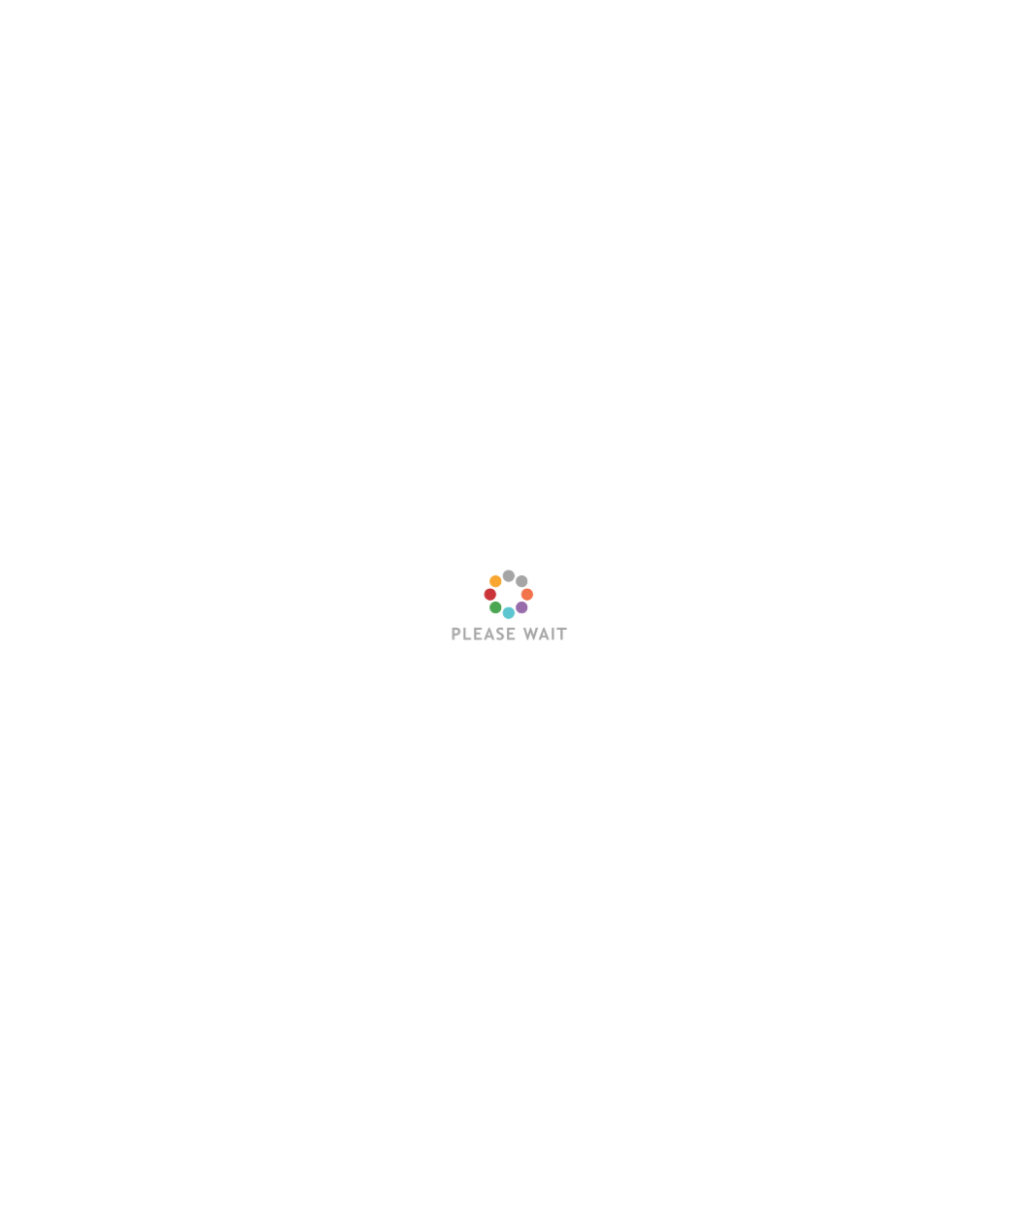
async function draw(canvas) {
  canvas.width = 1013;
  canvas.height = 1224;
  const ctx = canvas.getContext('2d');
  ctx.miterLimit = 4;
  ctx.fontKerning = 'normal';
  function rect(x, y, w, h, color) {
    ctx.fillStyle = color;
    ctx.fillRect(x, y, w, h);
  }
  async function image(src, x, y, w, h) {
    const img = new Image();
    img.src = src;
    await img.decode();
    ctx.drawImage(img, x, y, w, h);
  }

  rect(0, 0, 1013, 1224, '#fff');
  await image('assets/img1.png', 451, 569, 117, 72);
}

draw(document.querySelector('canvas'));
